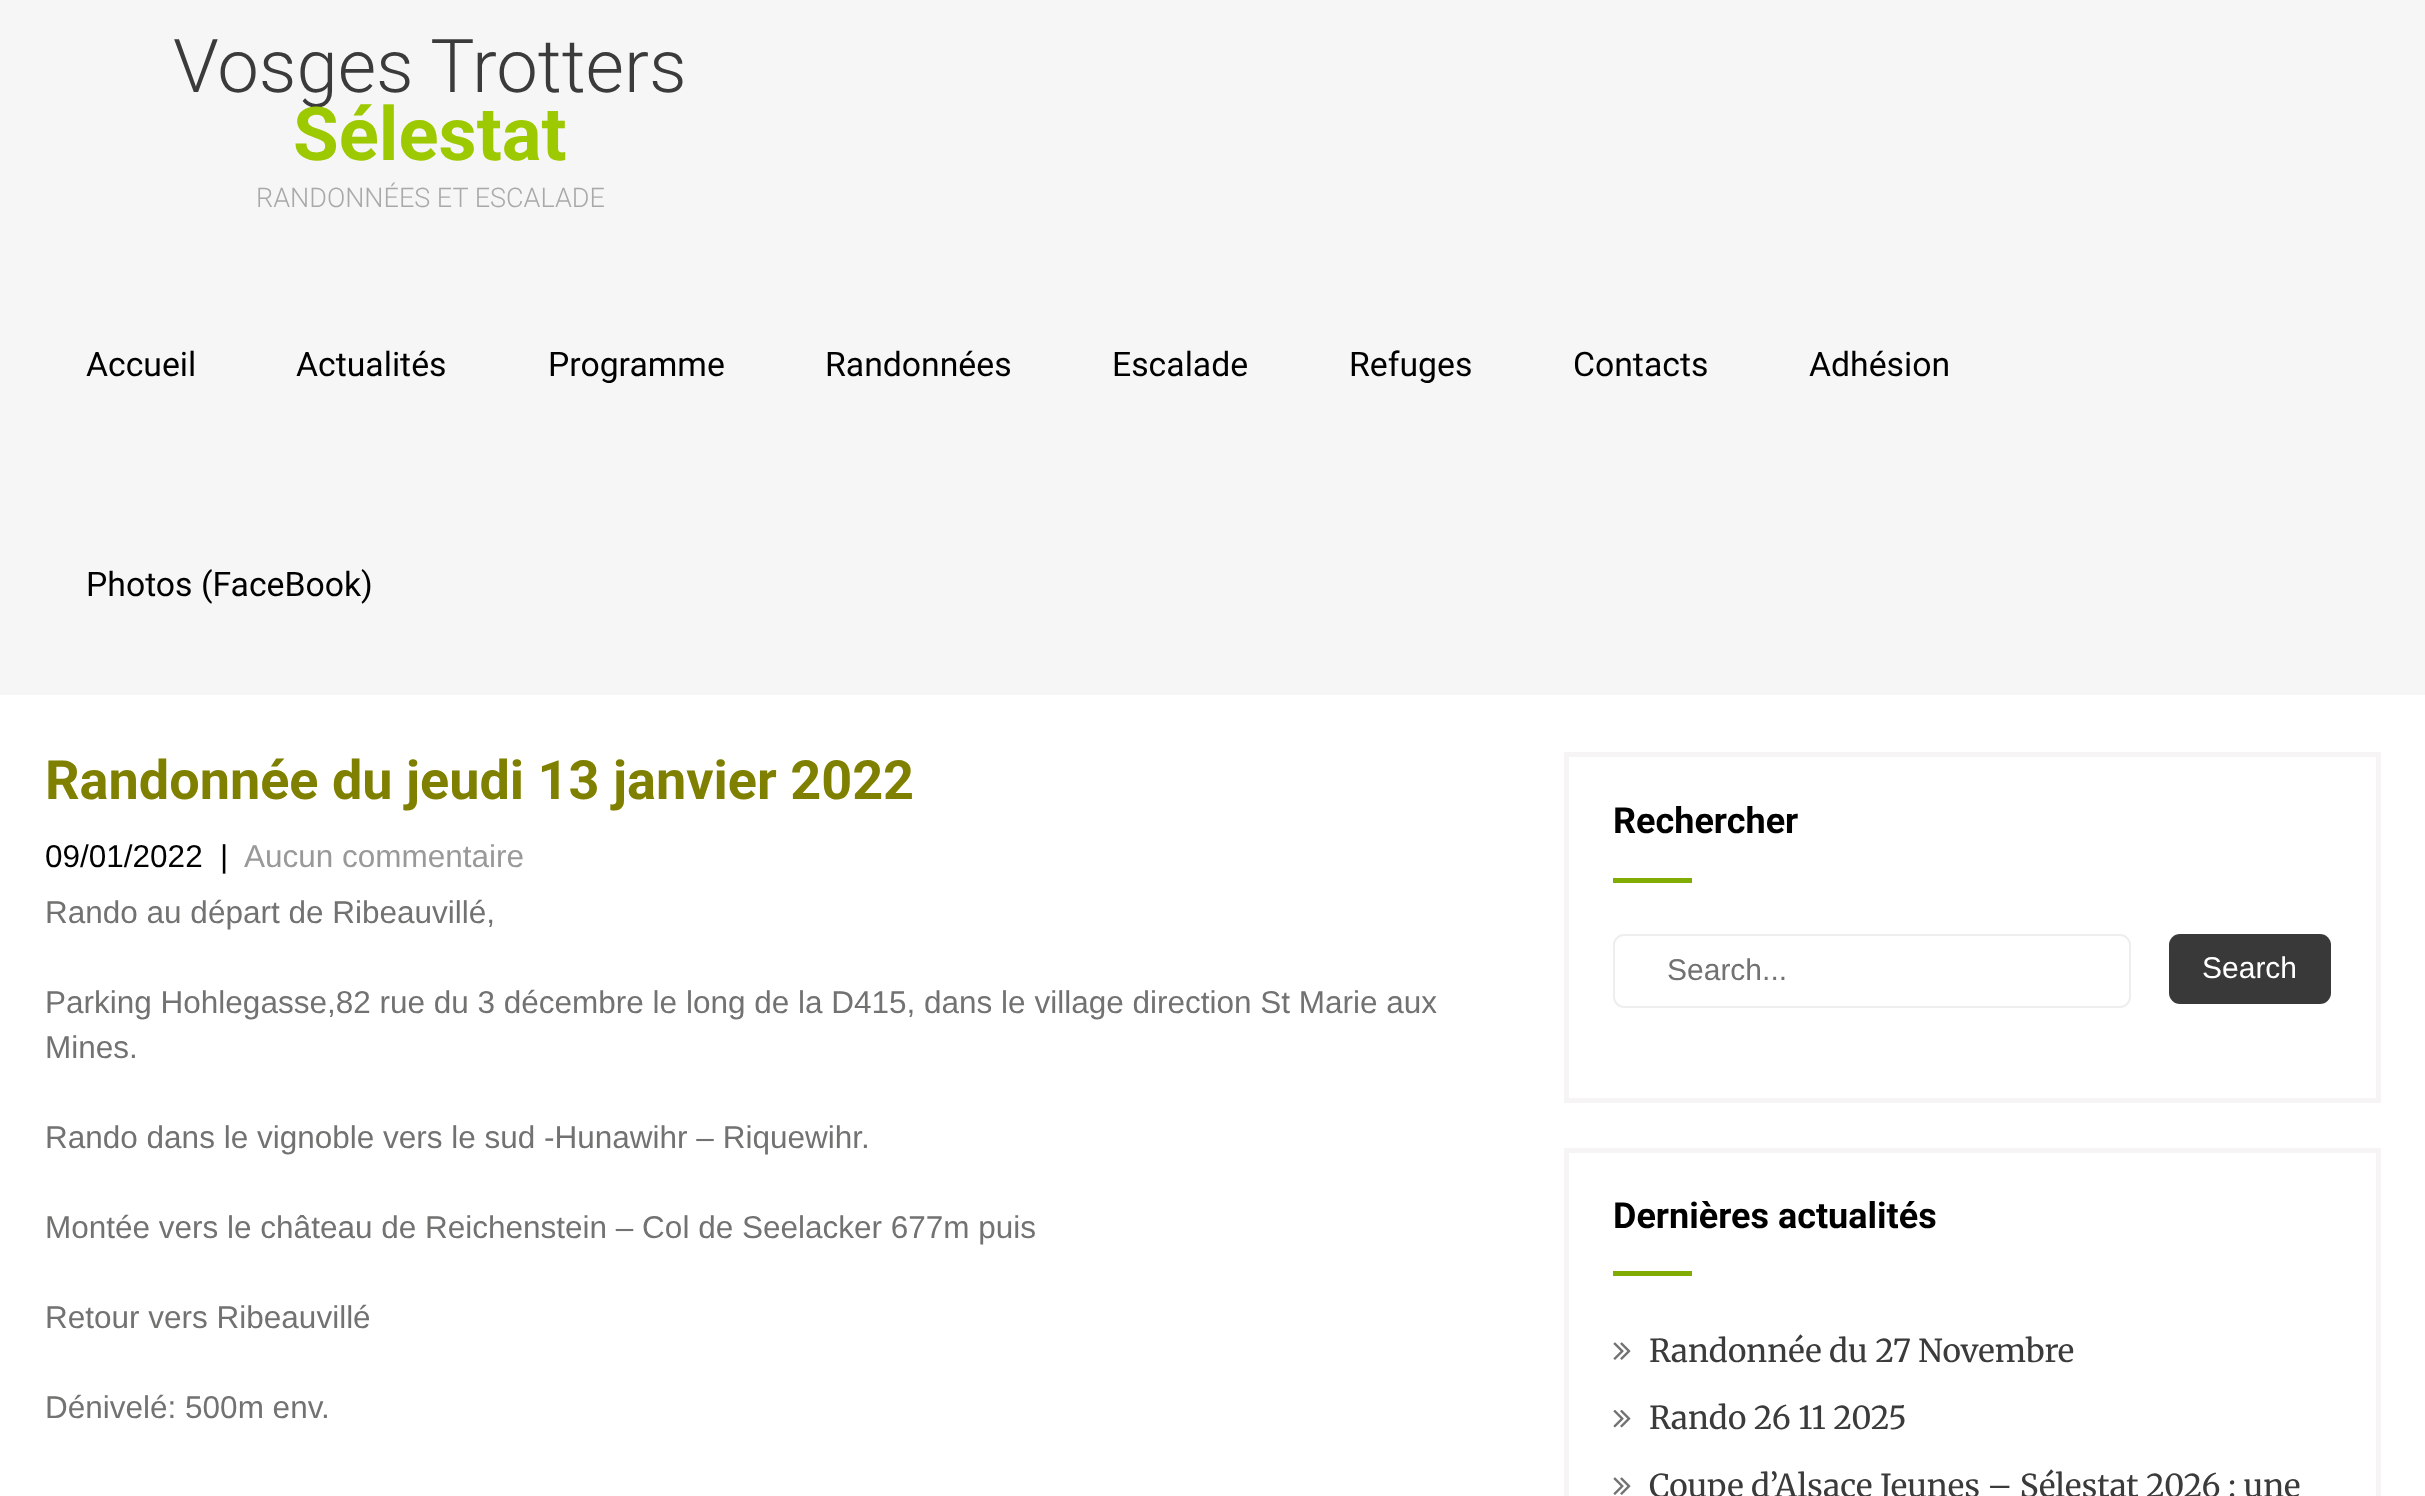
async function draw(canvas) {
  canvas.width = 2425;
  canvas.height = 1496;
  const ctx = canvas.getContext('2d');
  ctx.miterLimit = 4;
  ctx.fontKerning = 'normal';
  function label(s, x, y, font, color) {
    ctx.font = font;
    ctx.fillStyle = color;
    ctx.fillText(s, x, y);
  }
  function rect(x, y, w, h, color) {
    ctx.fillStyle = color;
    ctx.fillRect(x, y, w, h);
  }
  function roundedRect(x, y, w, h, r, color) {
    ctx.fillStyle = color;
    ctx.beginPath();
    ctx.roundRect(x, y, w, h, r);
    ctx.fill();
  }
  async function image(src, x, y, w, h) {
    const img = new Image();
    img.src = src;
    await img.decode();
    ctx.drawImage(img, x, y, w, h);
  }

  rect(0, 0, 2425, 1496, '#fff');
  rect(0, 0, 2425, 695, '#f6f6f6');
  label('Vosges Trotters', 173, 92, '300 74.25px Roboto', '#3b3b3b');
  label('Sélestat', 293, 160, 'bold 74.25px Roboto', '#9dc900');
  label('RANDONNÉES ET ESCALADE', 256, 207, '300 27px Roboto', '#a9a9a9');
  label('Accueil', 86, 376, '33.75px Roboto', '#000');
  label('Actualités', 296, 376, '33.75px Roboto', '#000');
  label('Programme', 548, 376, '33.75px Roboto', '#000');
  label('Randonnées', 825, 376, '33.75px Roboto', '#000');
  label('Escalade', 1112, 376, '33.75px Roboto', '#000');
  label('Refuges', 1349, 376, '33.75px Roboto', '#000');
  label('Contacts', 1573, 376, '33.75px Roboto', '#000');
  label('Adhésion', 1809, 376, '33.75px Roboto', '#000');
  label('Photos (FaceBook)', 86, 596, '33.75px Roboto', '#000');
  label('Randonnée du jeudi 13 janvier 2022', 45, 799, 'bold 54px Roboto', '#808000');
  label('09/01/2022', 45, 867, '31.5px Liberation Sans', '#000');
  label('|', 220, 867, '31.5px Liberation Sans', '#000');
  label('Aucun commentaire', 244, 867, '31.5px Liberation Sans', '#999');
  label('Rando au départ de Ribeauvillé,', 45, 923, '31.5px Liberation Sans', '#727370');
  label('Parking Hohlegasse,82 rue du 3 décembre le long de la D415, dans le village direction St Marie aux', 45, 1013, '31.5px Liberation Sans', '#727370');
  label('Mines.', 45, 1058, '31.5px Liberation Sans', '#727370');
  label('Rando dans le vignoble vers le sud -Hunawihr – Riquewihr.', 45, 1148, '31.5px Liberation Sans', '#727370');
  label('Montée vers le château de Reichenstein – Col de Seelacker 677m puis', 45, 1238, '31.5px Liberation Sans', '#727370');
  label('Retour vers Ribeauvillé', 45, 1328, '31.5px Liberation Sans', '#727370');
  label('Dénivelé: 500m env.', 45, 1418, '31.5px Liberation Sans', '#727370');
  ctx.strokeStyle = '#f6f4f4';
  ctx.lineWidth = 5;
  ctx.strokeRect(1566.5, 754.5, 812, 346);
  label('Rechercher', 1613, 833, 'bold 36px Roboto', '#000');
  rect(1613, 878, 79, 5, '#81ac04');
  ctx.beginPath();
  ctx.roundRect(1614, 935, 516, 72, 10);
  ctx.strokeStyle = '#eee';
  ctx.lineWidth = 2;
  ctx.stroke();
  label('Search...', 1667, 980, '30px Liberation Sans', '#727370');
  roundedRect(2169, 934, 162, 70, 11, '#393939');
  label('Search', 2202, 978, '30px Liberation Sans', '#fff');
  ctx.strokeStyle = '#f6f4f4';
  ctx.lineWidth = 5;
  ctx.strokeRect(1566.5, 1150.5, 812, 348);
  label('Dernières actualités', 1613, 1228, 'bold 36px Roboto', '#000');
  rect(1613, 1271, 79, 5, '#81ac04');
  await image('assets/img1.png', 1613, 1342, 18, 18);
  label('Randonnée du 27 Novembre', 1649, 1362, '31.5px Merriweather', '#3b3b3b');
  await image('assets/img2.png', 1613, 1409, 18, 19);
  label('Rando 26 11 2025', 1649, 1429, '31.5px Merriweather', '#3b3b3b');
  await image('assets/img1.png', 1613, 1477, 18, 18);
  label('Coupe d’Alsace Jeunes – Sélestat 2026 : une', 1649, 1497, '31.5px Merriweather', '#3b3b3b');
}

draw(document.querySelector('canvas'));
